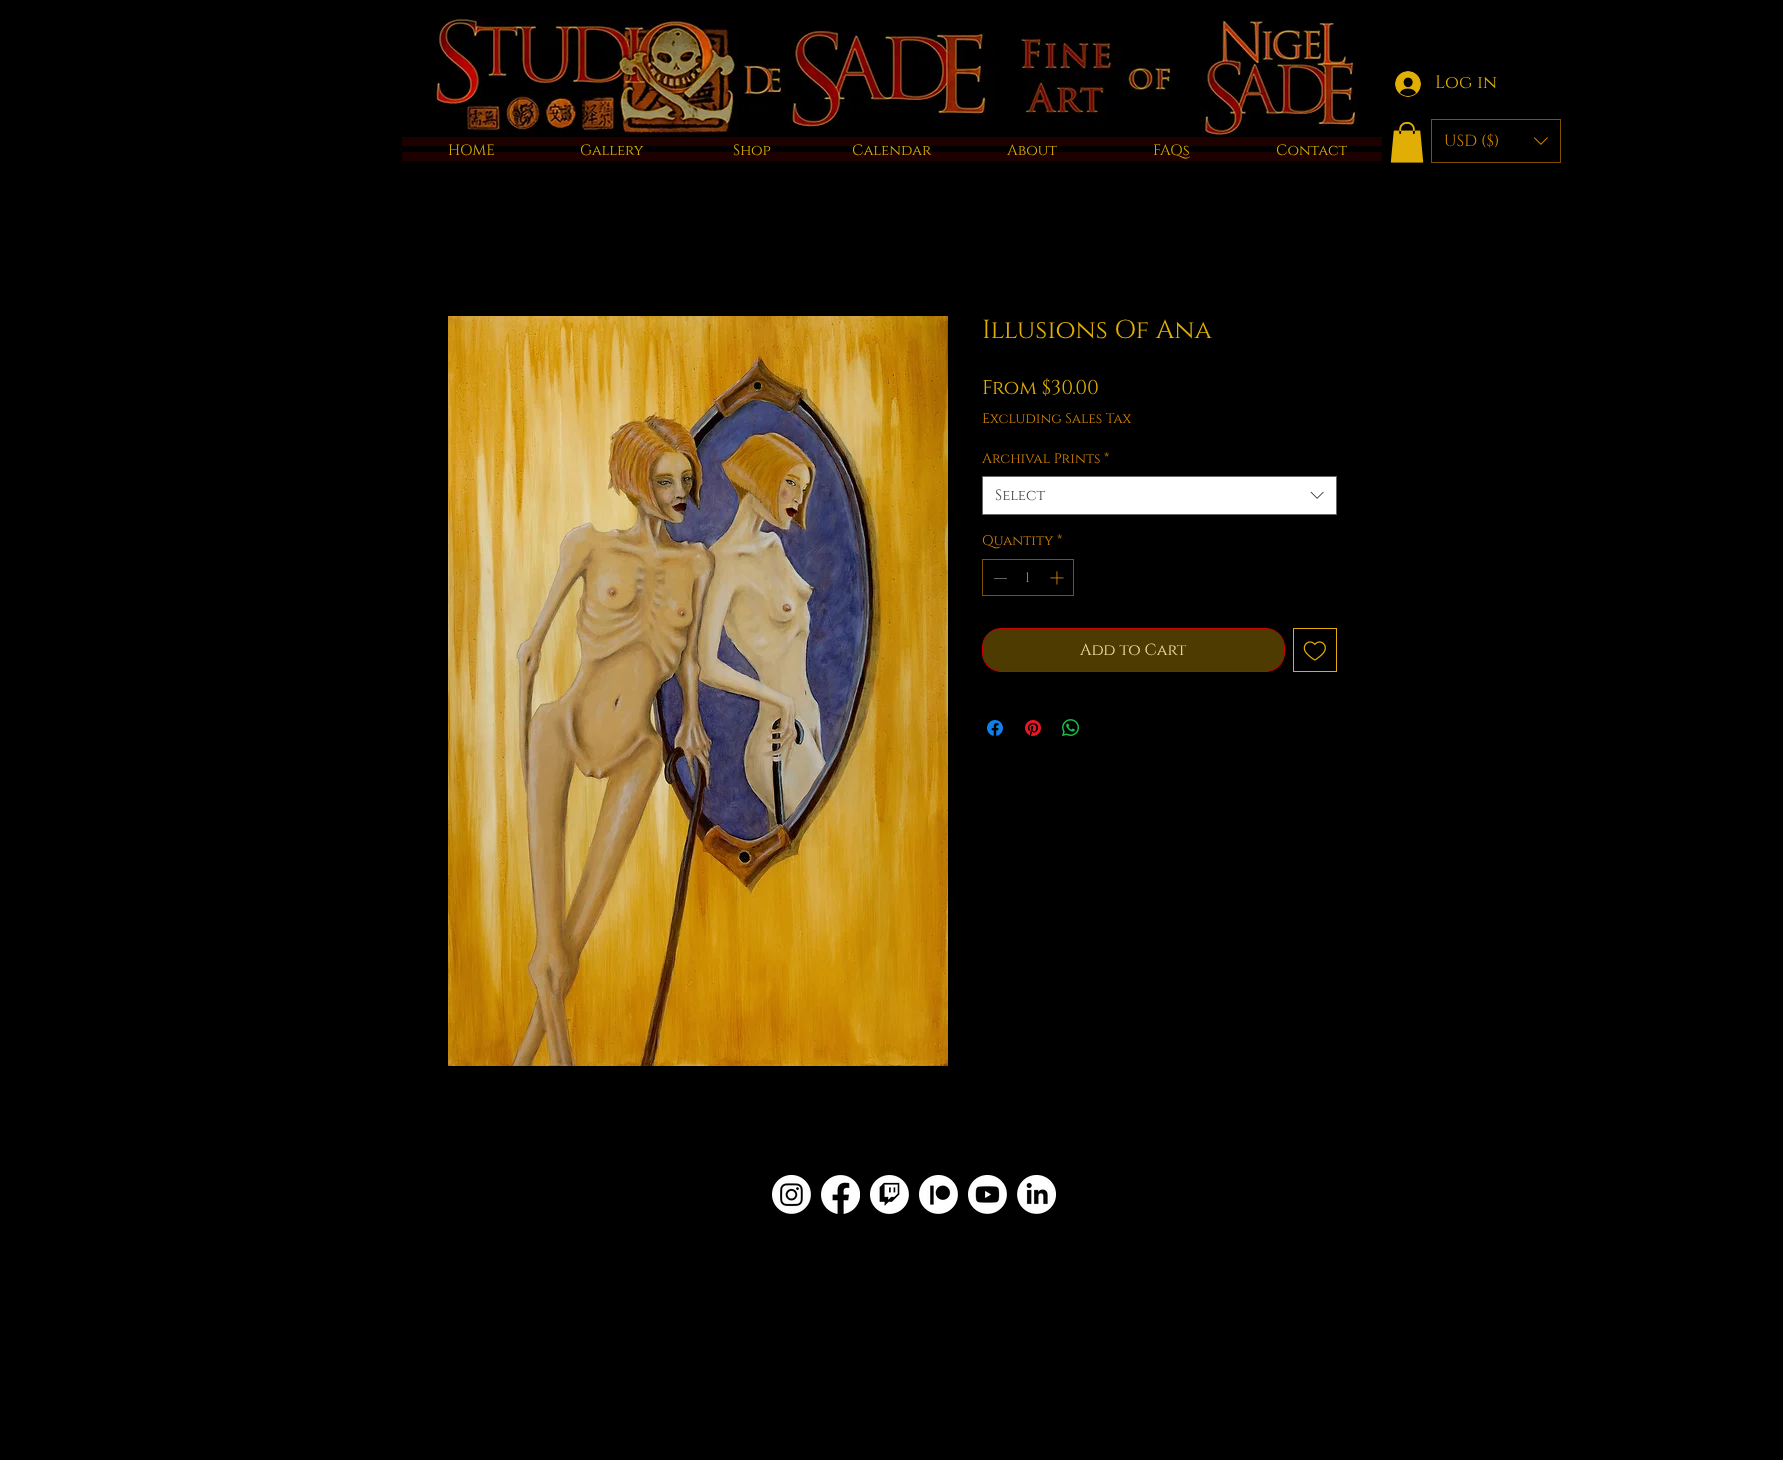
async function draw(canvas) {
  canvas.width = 1783;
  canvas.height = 1460;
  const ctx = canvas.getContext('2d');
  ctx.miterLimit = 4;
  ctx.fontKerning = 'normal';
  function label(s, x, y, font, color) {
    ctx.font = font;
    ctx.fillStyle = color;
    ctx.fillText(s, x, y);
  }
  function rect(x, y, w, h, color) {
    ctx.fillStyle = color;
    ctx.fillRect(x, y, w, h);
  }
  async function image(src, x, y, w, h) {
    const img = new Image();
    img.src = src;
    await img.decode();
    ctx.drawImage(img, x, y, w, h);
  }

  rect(0, 0, 1783, 1460, '#000');
  await image('assets/img1.png', 434, 15, 924, 121);
  await image('assets/img2.png', 1395, 71, 26, 26);
  label('Log in', 1435, 88, '18px Cinzel', '#e1ae05');
  await image('assets/img3.png', 1390, 122, 34, 41);
  ctx.strokeStyle = '#814f02';
  ctx.strokeRect(1431.5, 119.5, 129, 43);
  label('USD ($)', 1444, 146, '16px Cinzel', '#d78304');
  await image('assets/img4.png', 1533, 137, 15, 8);
  rect(402, 137, 980, 9, '#1d0000');
  rect(402, 152, 980, 9, '#1d0000');
  label('HOME', 448, 155, '15px Cinzel', '#e1ae05');
  label('Gallery', 580, 155, '15px Cinzel', '#e1ae05');
  label('Shop', 733, 155, '15px Cinzel', '#e1ae05');
  label('Calendar', 852, 155, '15px Cinzel', '#e1ae05');
  label('About', 1007, 155, '15px Cinzel', '#e1ae05');
  label('FAQs', 1153, 155, '15px Cinzel', '#e1ae05');
  label('Contact', 1276, 155, '15px Cinzel', '#e1ae05');
  await image('assets/img5.png', 448, 316, 500, 750);
  label('Illusions Of Ana', 982, 338, '26px Cinzel', '#e1ae05');
  label('From $30.00', 982, 394, '20px Cinzel', '#e1ae05');
  label('Excluding Sales Tax', 982, 423, '14px Cinzel', '#d78304');
  label('Archival Prints', 982, 463, '14px Cinzel', '#d78304');
  label('*', 1104, 463, '14px Cinzel', '#d78304');
  ctx.fillStyle = '#fff';
  ctx.beginPath();
  ctx.rect(982.5, 476.5, 354, 38);
  ctx.fill();
  ctx.strokeStyle = '#666';
  ctx.stroke();
  label('Select', 995, 500, '15px Cinzel', '#444');
  await image('assets/img6.png', 1310, 491, 14, 8);
  label('Quantity', 982, 545, '14px Cinzel', '#d78304');
  label('*', 1057, 545, '14px Cinzel', '#d78304');
  ctx.strokeStyle = '#814f02';
  ctx.strokeRect(982.5, 559.5, 91, 36);
  rect(994, 578, 13, 1, '#646464');
  label('1', 1025, 582, '14px Cinzel', '#d78304');
  await image('assets/img7.png', 1050, 571, 14, 14);
  ctx.fillStyle = '#4d3b02';
  ctx.beginPath();
  ctx.roundRect(982.5, 628.5, 302, 43, 18.5);
  ctx.fill();
  ctx.strokeStyle = '#c40303';
  ctx.stroke();
  label('Add to Cart', 1080, 655, '16px Cinzel', '#f5e2a5');
  ctx.strokeStyle = '#e1ae05';
  ctx.strokeRect(1293.5, 628.5, 43, 43);
  await image('assets/img8.png', 1303, 641, 23, 20);
  await image('assets/img9.png', 987, 720, 16, 16);
  await image('assets/img10.png', 1025, 720, 16, 16);
  await image('assets/img11.png', 1062, 719, 17, 17);
  await image('assets/img12.png', 772, 1175, 39, 39);
  await image('assets/img13.png', 821, 1175, 39, 39);
  await image('assets/img14.png', 870, 1175, 39, 39);
  await image('assets/img15.png', 919, 1175, 39, 39);
  await image('assets/img16.png', 968, 1175, 39, 39);
  await image('assets/img17.png', 1017, 1175, 39, 39);
}

draw(document.querySelector('canvas'));
